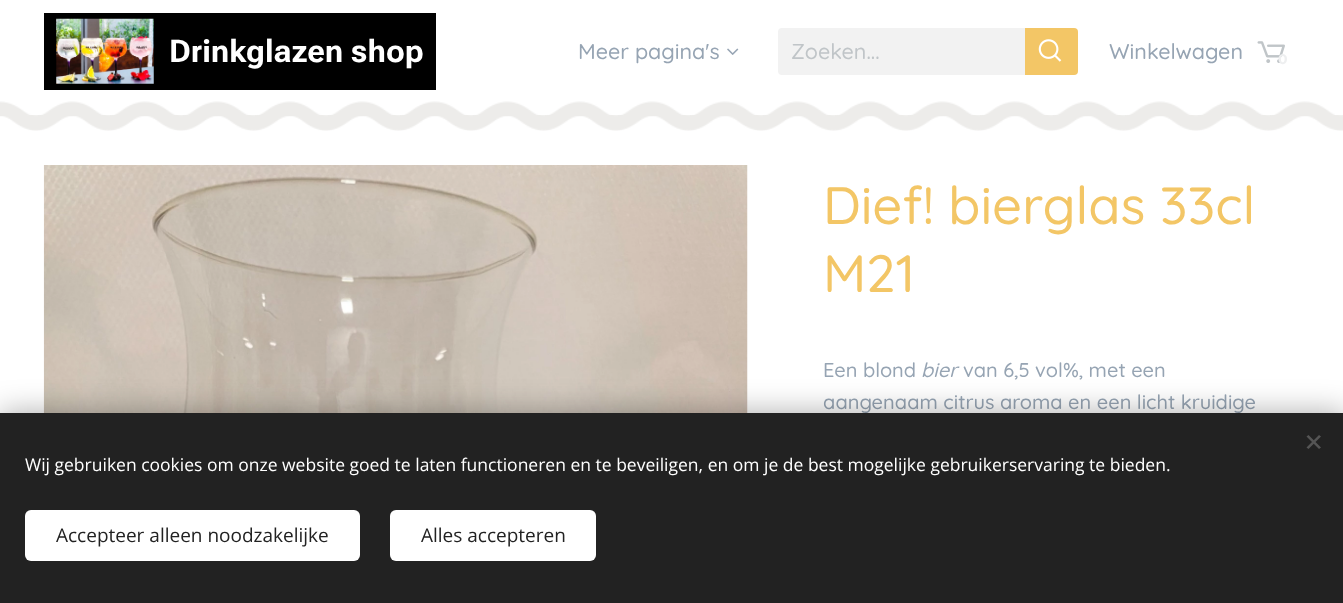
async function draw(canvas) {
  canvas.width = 1343;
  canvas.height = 603;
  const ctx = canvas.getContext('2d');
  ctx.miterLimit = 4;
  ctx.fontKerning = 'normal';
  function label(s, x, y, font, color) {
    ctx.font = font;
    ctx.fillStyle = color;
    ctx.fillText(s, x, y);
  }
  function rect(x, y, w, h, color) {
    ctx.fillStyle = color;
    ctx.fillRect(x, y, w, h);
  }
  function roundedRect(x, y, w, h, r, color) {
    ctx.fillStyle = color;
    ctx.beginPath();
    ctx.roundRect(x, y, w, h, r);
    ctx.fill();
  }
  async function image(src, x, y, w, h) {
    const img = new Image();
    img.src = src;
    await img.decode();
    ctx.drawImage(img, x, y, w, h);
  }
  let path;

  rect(0, 0, 1343, 603, '#fff');
  rect(44, 13, 392, 77, '#000');
  await image('assets/img1.png', 56, 18, 98, 66);
  label('Drinkglazen shop', 169, 62, 'bold 31.25px Roboto Flex', '#fff');
  label('Meer pagina\'s', 578, 59, '500 21.5px Quicksand', '#96a4b3');
  await image('assets/img2.png', 727, 48, 12, 7);
  ctx.fillStyle = '#f2f2f2';
  ctx.beginPath();
  ctx.roundRect(778, 28, 247, 47, [4, 0, 0, 4]);
  ctx.fill();
  label('Zoeken...', 791, 59, '500 21.5px Quicksand', '#c0c5c8');
  ctx.fillStyle = '#f3c666';
  ctx.beginPath();
  ctx.roundRect(1025, 28, 53, 47, [0, 4, 4, 0]);
  ctx.fill();
  await image('assets/img3.png', 1038, 39, 24, 23);
  label('Winkelwagen', 1109, 59, '500 21.5px Quicksand', '#96a4b3');
  await image('assets/img4.png', 1257, 41, 28, 22);
  label('0', 1278, 64, 'bold 14px Montserrat', '#eeeff0');
  await image('assets/img6.png', 0, 115, 1343, 16);
  await image('assets/img5.png', 0, 101, 1335, 15);
  await image('assets/img7.png', 43, 165, 705, 248);
  label('Dief! bierglas 33cl', 823, 224, '500 52.5px Quicksand', '#f3c666');
  label('M21', 823, 292, '500 52.5px Quicksand', '#f3c666');
  label('Een blond', 823, 377, '500 20px Quicksand', '#96a4b3');
  label('bier', 921, 377, 'italic 500 20px Quicksand', '#96a4b3');
  label('van 6,5 vol%, met een', 963, 377, '500 20px Quicksand', '#96a4b3');
  label('aangenaam citrus aroma en een licht kruidige', 823, 409, '500 20px Quicksand', '#96a4b3');
  ctx.fillStyle = '#00000054';
  ctx.filter = 'blur(15.5px)';
  ctx.beginPath();
  ctx.rect(0, 413, 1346, 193);
  ctx.fill();
  ctx.filter = 'none';
  rect(0, 413, 1343, 190, '#222');
  ctx.fillStyle = '#555';
  path = new Path2D('M1306.5 447.5L1319 435L1321 436.5L1308.5 449Z');
  ctx.fill(path);
  path = new Path2D('M1308.5 435L1321 447.5L1319 449L1306.5 436.5Z');
  ctx.fill(path);
  label('Wij gebruiken cookies om onze website goed te laten functioneren en te beveiligen, en om je de best mogelijke gebruikerservaring te bieden.', 25, 471, '17.5px Open Sans', '#fff');
  roundedRect(25, 510, 335, 51, 6, '#fff');
  label('Accepteer alleen noodzakelijke', 56, 542, '19px Open Sans', '#222');
  roundedRect(390, 510, 206, 51, 6, '#fff');
  label('Alles accepteren', 421, 542, '19px Open Sans', '#222');
}

draw(document.querySelector('canvas'));
